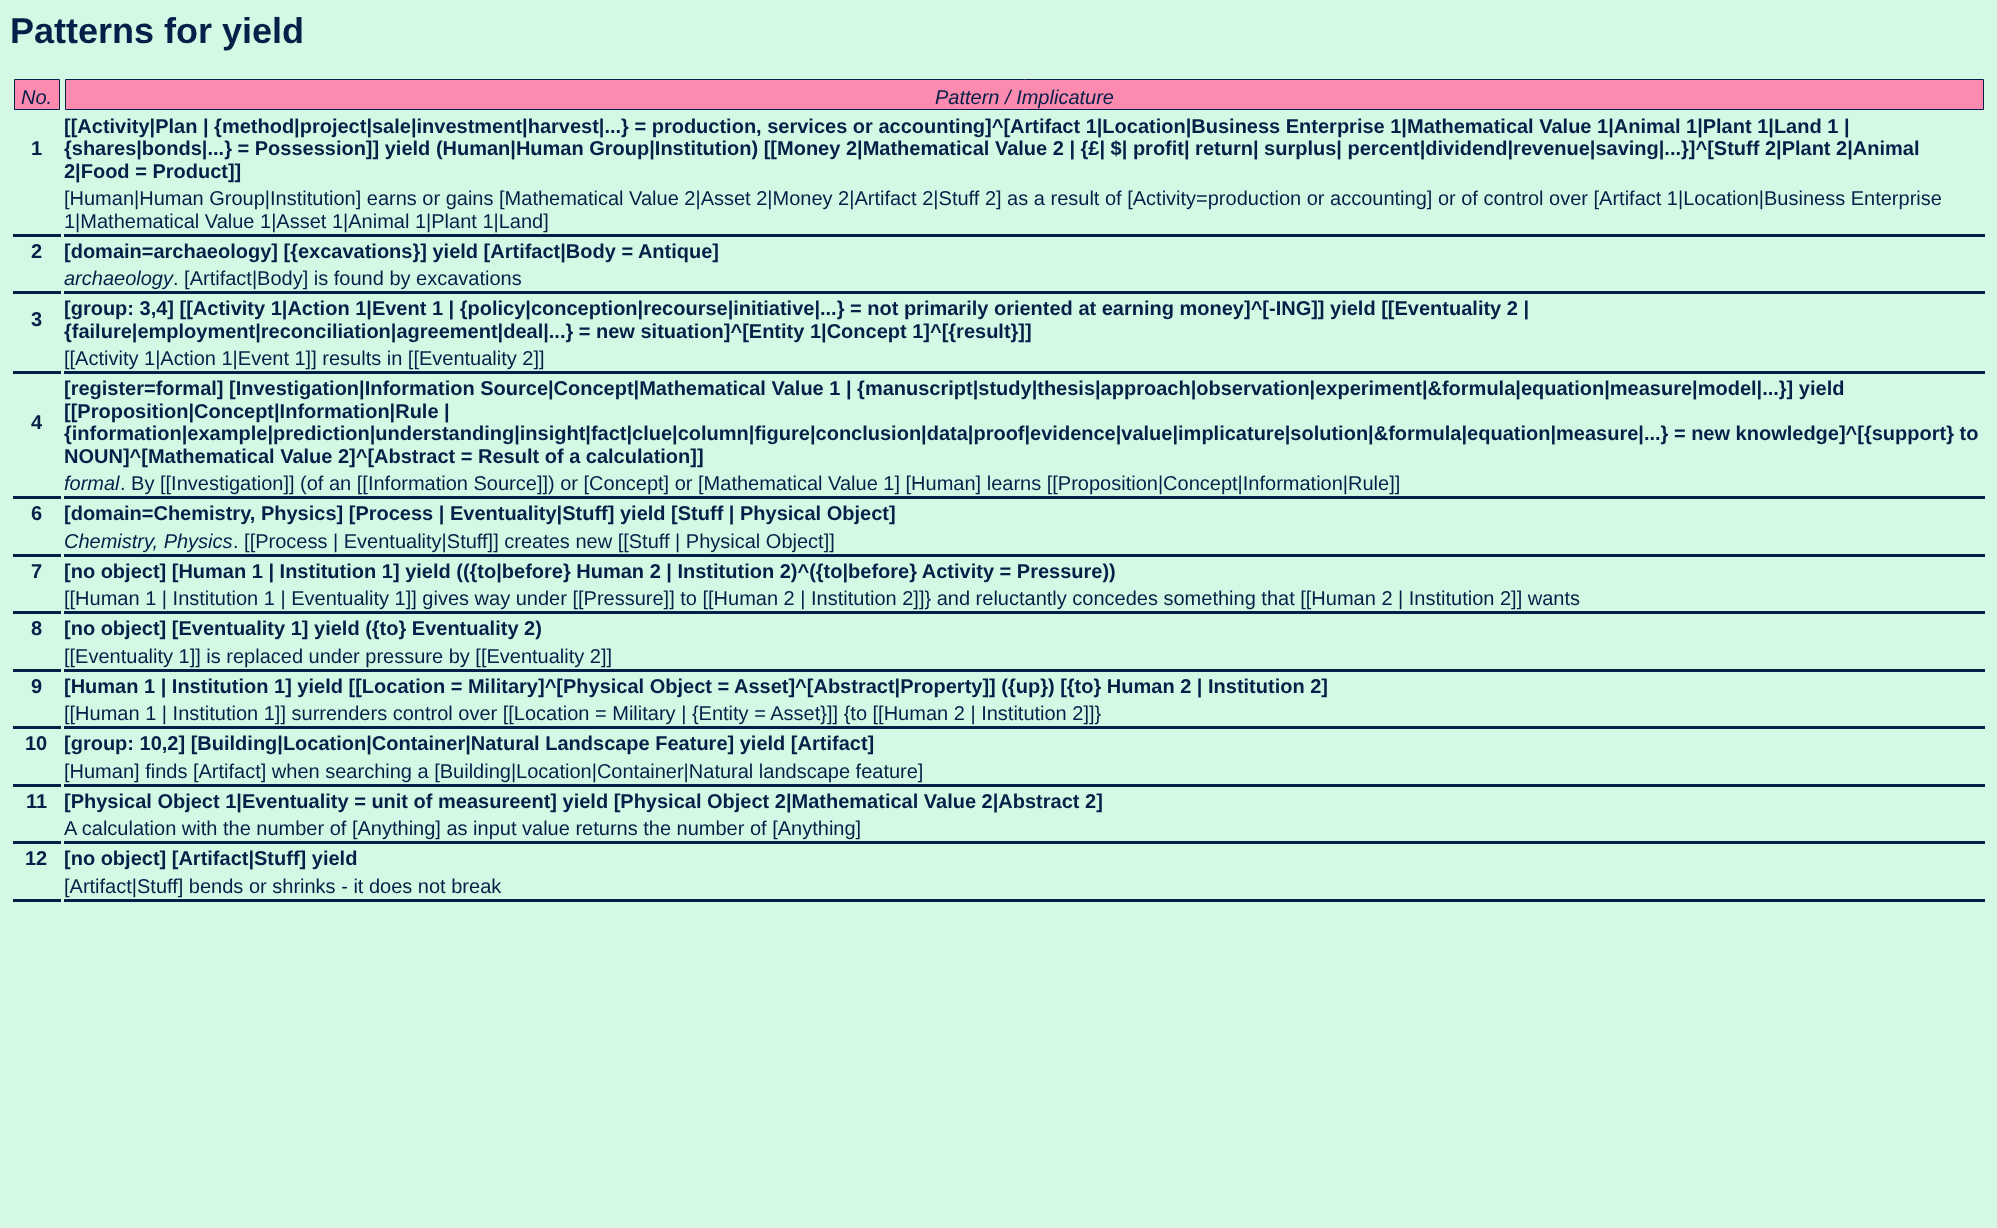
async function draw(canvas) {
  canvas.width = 1997;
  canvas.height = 1228;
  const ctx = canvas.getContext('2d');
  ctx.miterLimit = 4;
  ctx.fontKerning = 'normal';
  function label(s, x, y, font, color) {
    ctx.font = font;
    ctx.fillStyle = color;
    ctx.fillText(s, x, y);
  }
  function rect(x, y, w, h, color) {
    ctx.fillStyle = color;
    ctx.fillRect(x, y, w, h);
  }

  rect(0, 0, 1997, 1228, '#d4f8e3');
  label('Patterns for yield', 10, 43, 'bold 36px Liberation Sans', '#051f48');
  ctx.fillStyle = '#fc8baf';
  ctx.beginPath();
  ctx.rect(14.5, 79.5, 45, 30);
  ctx.fill();
  ctx.strokeStyle = '#051f48';
  ctx.stroke();
  label('No.', 21, 104, 'italic 20px Liberation Sans', '#051f48');
  ctx.fillStyle = '#fc8baf';
  ctx.beginPath();
  ctx.rect(65.5, 79.5, 1918, 30);
  ctx.fill();
  ctx.stroke();
  label('Pattern / Implicature', 935, 104, 'italic 20px Liberation Sans', '#051f48');
  label('1', 31, 155, 'bold 20px Liberation Sans', '#051f48');
  label('[[Activity|Plan | {method|project|sale|investment|harvest|...} = production, services or accounting]^[Artifact 1|Location|Business Enterprise 1|Mathematical Value 1|Animal 1|Plant 1|Land 1 |', 64, 133, 'bold 20px Liberation Sans', '#051f48');
  label('{shares|bonds|...} = Possession]] yield (Human|Human Group|Institution) [[Money 2|Mathematical Value 2 | {£| $| profit| return| surplus| percent|dividend|revenue|saving|...}]^[Stuff 2|Plant 2|Animal', 64, 155, 'bold 20px Liberation Sans', '#051f48');
  label('2|Food = Product]]', 64, 178, 'bold 20px Liberation Sans', '#051f48');
  rect(64, 234, 1921, 3, '#051f48');
  label('[Human|Human Group|Institution] earns or gains [Mathematical Value 2|Asset 2|Money 2|Artifact 2|Stuff 2] as a result of [Activity=production or accounting] or of control over [Artifact 1|Location|Business Enterprise', 64, 205, '20px Liberation Sans', '#051f48');
  label('1|Mathematical Value 1|Asset 1|Animal 1|Plant 1|Land]', 64, 228, '20px Liberation Sans', '#051f48');
  rect(13, 234, 48, 3, '#051f48');
  label('2', 31, 258, 'bold 20px Liberation Sans', '#051f48');
  label('[domain=archaeology] [{excavations}] yield [Artifact|Body = Antique]', 64, 258, 'bold 20px Liberation Sans', '#051f48');
  rect(64, 291, 1921, 3, '#051f48');
  label('archaeology', 64, 285, 'italic 20px Liberation Sans', '#051f48');
  label('. [Artifact|Body] is found by excavations', 173, 285, '20px Liberation Sans', '#051f48');
  rect(13, 291, 48, 3, '#051f48');
  label('3', 31, 326, 'bold 20px Liberation Sans', '#051f48');
  label('[group: 3,4] [[Activity 1|Action 1|Event 1 | {policy|conception|recourse|initiative|...} = not primarily oriented at earning money]^[-ING]] yield [[Eventuality 2 |', 64, 315, 'bold 20px Liberation Sans', '#051f48');
  label('{failure|employment|reconciliation|agreement|deal|...} = new situation]^[Entity 1|Concept 1]^[{result}]]', 64, 338, 'bold 20px Liberation Sans', '#051f48');
  rect(64, 371, 1921, 3, '#051f48');
  label('[[Activity 1|Action 1|Event 1]] results in [[Eventuality 2]]', 64, 365, '20px Liberation Sans', '#051f48');
  rect(13, 371, 48, 3, '#051f48');
  label('4', 31, 429, 'bold 20px Liberation Sans', '#051f48');
  label('[register=formal] [Investigation|Information Source|Concept|Mathematical Value 1 | {manuscript|study|thesis|approach|observation|experiment|&formula|equation|measure|model|...}] yield', 64, 395, 'bold 20px Liberation Sans', '#051f48');
  label('[[Proposition|Concept|Information|Rule |', 64, 418, 'bold 20px Liberation Sans', '#051f48');
  label('{information|example|prediction|understanding|insight|fact|clue|column|figure|conclusion|data|proof|evidence|value|implicature|solution|&formula|equation|measure|...} = new knowledge]^[{support} to', 64, 440, 'bold 20px Liberation Sans', '#051f48');
  label('NOUN]^[Mathematical Value 2]^[Abstract = Result of a calculation]]', 64, 463, 'bold 20px Liberation Sans', '#051f48');
  rect(64, 496, 1921, 3, '#051f48');
  label('formal', 64, 490, 'italic 20px Liberation Sans', '#051f48');
  label('. By [[Investigation]] (of an [[Information Source]]) or [Concept] or [Mathematical Value 1] [Human] learns [[Proposition|Concept|Information|Rule]]', 120, 490, '20px Liberation Sans', '#051f48');
  rect(13, 496, 48, 3, '#051f48');
  label('6', 31, 520, 'bold 20px Liberation Sans', '#051f48');
  label('[domain=Chemistry, Physics] [Process | Eventuality|Stuff] yield [Stuff | Physical Object]', 64, 520, 'bold 20px Liberation Sans', '#051f48');
  rect(64, 554, 1921, 3, '#051f48');
  label('Chemistry, Physics', 64, 548, 'italic 20px Liberation Sans', '#051f48');
  label('. [[Process | Eventuality|Stuff]] creates new [[Stuff | Physical Object]]', 233, 548, '20px Liberation Sans', '#051f48');
  rect(13, 554, 48, 3, '#051f48');
  label('7', 31, 578, 'bold 20px Liberation Sans', '#051f48');
  label('[no object] [Human 1 | Institution 1] yield (({to|before} Human 2 | Institution 2)^({to|before} Activity = Pressure))', 64, 578, 'bold 20px Liberation Sans', '#051f48');
  rect(64, 611, 1921, 3, '#051f48');
  label('[[Human 1 | Institution 1 | Eventuality 1]] gives way under [[Pressure]] to [[Human 2 | Institution 2]]} and reluctantly concedes something that [[Human 2 | Institution 2]] wants', 64, 605, '20px Liberation Sans', '#051f48');
  rect(13, 611, 48, 3, '#051f48');
  label('8', 31, 635, 'bold 20px Liberation Sans', '#051f48');
  label('[no object] [Eventuality 1] yield ({to} Eventuality 2)', 64, 635, 'bold 20px Liberation Sans', '#051f48');
  rect(64, 669, 1921, 3, '#051f48');
  label('[[Eventuality 1]] is replaced under pressure by [[Eventuality 2]]', 64, 663, '20px Liberation Sans', '#051f48');
  rect(13, 669, 48, 3, '#051f48');
  label('9', 31, 693, 'bold 20px Liberation Sans', '#051f48');
  label('[Human 1 | Institution 1] yield [[Location = Military]^[Physical Object = Asset]^[Abstract|Property]] ({up}) [{to} Human 2 | Institution 2]', 64, 693, 'bold 20px Liberation Sans', '#051f48');
  rect(64, 726, 1921, 3, '#051f48');
  label('[[Human 1 | Institution 1]] surrenders control over [[Location = Military | {Entity = Asset}]] {to [[Human 2 | Institution 2]]}', 64, 720, '20px Liberation Sans', '#051f48');
  rect(13, 726, 48, 3, '#051f48');
  label('10', 25, 750, 'bold 20px Liberation Sans', '#051f48');
  label('[group: 10,2] [Building|Location|Container|Natural Landscape Feature] yield [Artifact]', 64, 750, 'bold 20px Liberation Sans', '#051f48');
  rect(64, 784, 1921, 3, '#051f48');
  label('[Human] finds [Artifact] when searching a [Building|Location|Container|Natural landscape feature]', 64, 778, '20px Liberation Sans', '#051f48');
  rect(13, 784, 48, 3, '#051f48');
  label('11', 26, 808, 'bold 20px Liberation Sans', '#051f48');
  label('[Physical Object 1|Eventuality = unit of measureent] yield [Physical Object 2|Mathematical Value 2|Abstract 2]', 64, 808, 'bold 20px Liberation Sans', '#051f48');
  rect(64, 841, 1921, 3, '#051f48');
  label('A calculation with the number of [Anything] as input value returns the number of [Anything]', 64, 835, '20px Liberation Sans', '#051f48');
  rect(13, 841, 48, 3, '#051f48');
  label('12', 25, 865, 'bold 20px Liberation Sans', '#051f48');
  label('[no object] [Artifact|Stuff] yield', 64, 865, 'bold 20px Liberation Sans', '#051f48');
  rect(64, 899, 1921, 3, '#051f48');
  label('[Artifact|Stuff] bends or shrinks - it does not break', 64, 893, '20px Liberation Sans', '#051f48');
  rect(13, 899, 48, 3, '#051f48');
}

draw(document.querySelector('canvas'));
